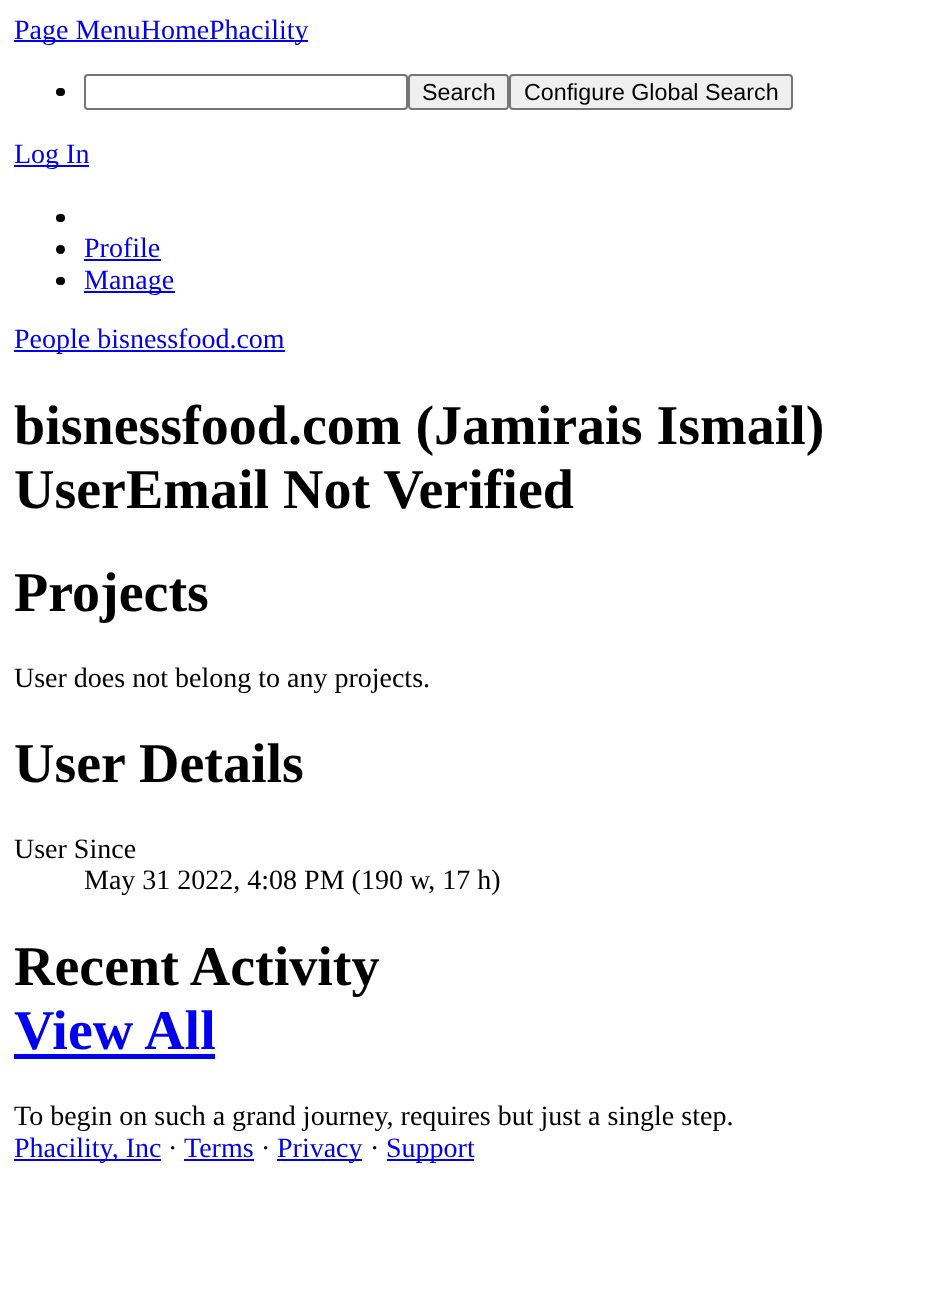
async function draw(canvas) {
  canvas.width = 925;
  canvas.height = 1294;
  const ctx = canvas.getContext('2d');
  ctx.miterLimit = 4;
  ctx.fontKerning = 'normal';
  function label(s, x, y, font, color) {
    ctx.font = font;
    ctx.fillStyle = color;
    ctx.fillText(s, x, y);
  }
  function rect(x, y, w, h, color) {
    ctx.fillStyle = color;
    ctx.fillRect(x, y, w, h);
  }
  function roundedRect(x, y, w, h, r, color) {
    ctx.fillStyle = color;
    ctx.beginPath();
    ctx.roundRect(x, y, w, h, r);
    ctx.fill();
  }

  rect(0, 0, 925, 1294, '#fff');
  rect(14, 40, 126, 2, '#00e');
  label('Page MenuHome', 14, 39, '28px Liberation Serif', '#00e');
  rect(140, 40, 168, 2, '#00e');
  label('Phacility', 209, 39, '28px Liberation Serif', '#00e');
  roundedRect(56, 88, 9, 8, 4, '#000');
  ctx.beginPath();
  ctx.roundRect(85, 75, 322, 34, 3);
  ctx.strokeStyle = '#767676';
  ctx.lineWidth = 2;
  ctx.stroke();
  ctx.fillStyle = '#efefef';
  ctx.beginPath();
  ctx.roundRect(409, 75, 99, 34, 3);
  ctx.fill();
  ctx.stroke();
  label('Search', 422, 100, '23.25px Liberation Sans', '#000');
  ctx.fillStyle = '#efefef';
  ctx.beginPath();
  ctx.roundRect(510, 75, 282, 34, 3);
  ctx.fill();
  ctx.stroke();
  label('Configure Global Search', 524, 100, '23.25px Liberation Sans', '#000');
  rect(14, 165, 75, 2, '#00e');
  label('Log In', 14, 163, '28px Liberation Serif', '#00e');
  roundedRect(56, 214, 9, 8, 4, '#000');
  ctx.beginPath();
  ctx.arc(60.5, 249.5, 4.5, 0, 2 * Math.PI);
  ctx.fill();
  label('Profile', 84, 257, '28px Liberation Serif', '#00e');
  rect(84, 259, 77, 2, '#00e');
  roundedRect(56, 277, 9, 8, 4, '#000');
  rect(84, 291, 91, 2, '#00e');
  label('Manage', 84, 289, '28px Liberation Serif', '#00e');
  rect(14, 350, 271, 2, '#00e');
  label('People bisnessfood.com', 14, 348, '28px Liberation Serif', '#00e');
  label('bisnessfood.com (Jamirais Ismail)', 14, 444, 'bold 56px Liberation Serif', '#000');
  label('UserEmail Not Verified', 14, 508, 'bold 56px Liberation Serif', '#000');
  label('Projects', 14, 611, 'bold 56px Liberation Serif', '#000');
  label('User does not belong to any projects.', 14, 687, '28px Liberation Serif', '#000');
  label('User Details', 14, 782, 'bold 56px Liberation Serif', '#000');
  label('User Since', 14, 858, '28px Liberation Serif', '#000');
  label('May 31 2022, 4:08 PM (190 w, 17 h)', 84, 889, '28px Liberation Serif', '#000');
  label('Recent Activity', 14, 985, 'bold 56px Liberation Serif', '#000');
  label('View All', 14, 1049, 'bold 56px Liberation Serif', '#00e');
  rect(14, 1054, 201, 5, '#00e');
  label('To begin on such a grand journey, requires but just a single step.', 14, 1125, '28px Liberation Serif', '#000');
  rect(14, 1159, 147, 2, '#00e');
  label('Phacility, Inc', 14, 1157, '28px Liberation Serif', '#00e');
  label('·', 168, 1157, '28px Liberation Serif', '#000');
  label('Terms', 184, 1157, '28px Liberation Serif', '#00e');
  rect(184, 1159, 70, 2, '#00e');
  label('·', 261, 1157, '28px Liberation Serif', '#000');
  rect(277, 1159, 85, 2, '#00e');
  label('Privacy', 277, 1157, '28px Liberation Serif', '#00e');
  label('·', 370, 1157, '28px Liberation Serif', '#000');
  rect(387, 1159, 87, 2, '#00e');
  label('Support', 386, 1157, '28px Liberation Serif', '#00e');
}

draw(document.querySelector('canvas'));
